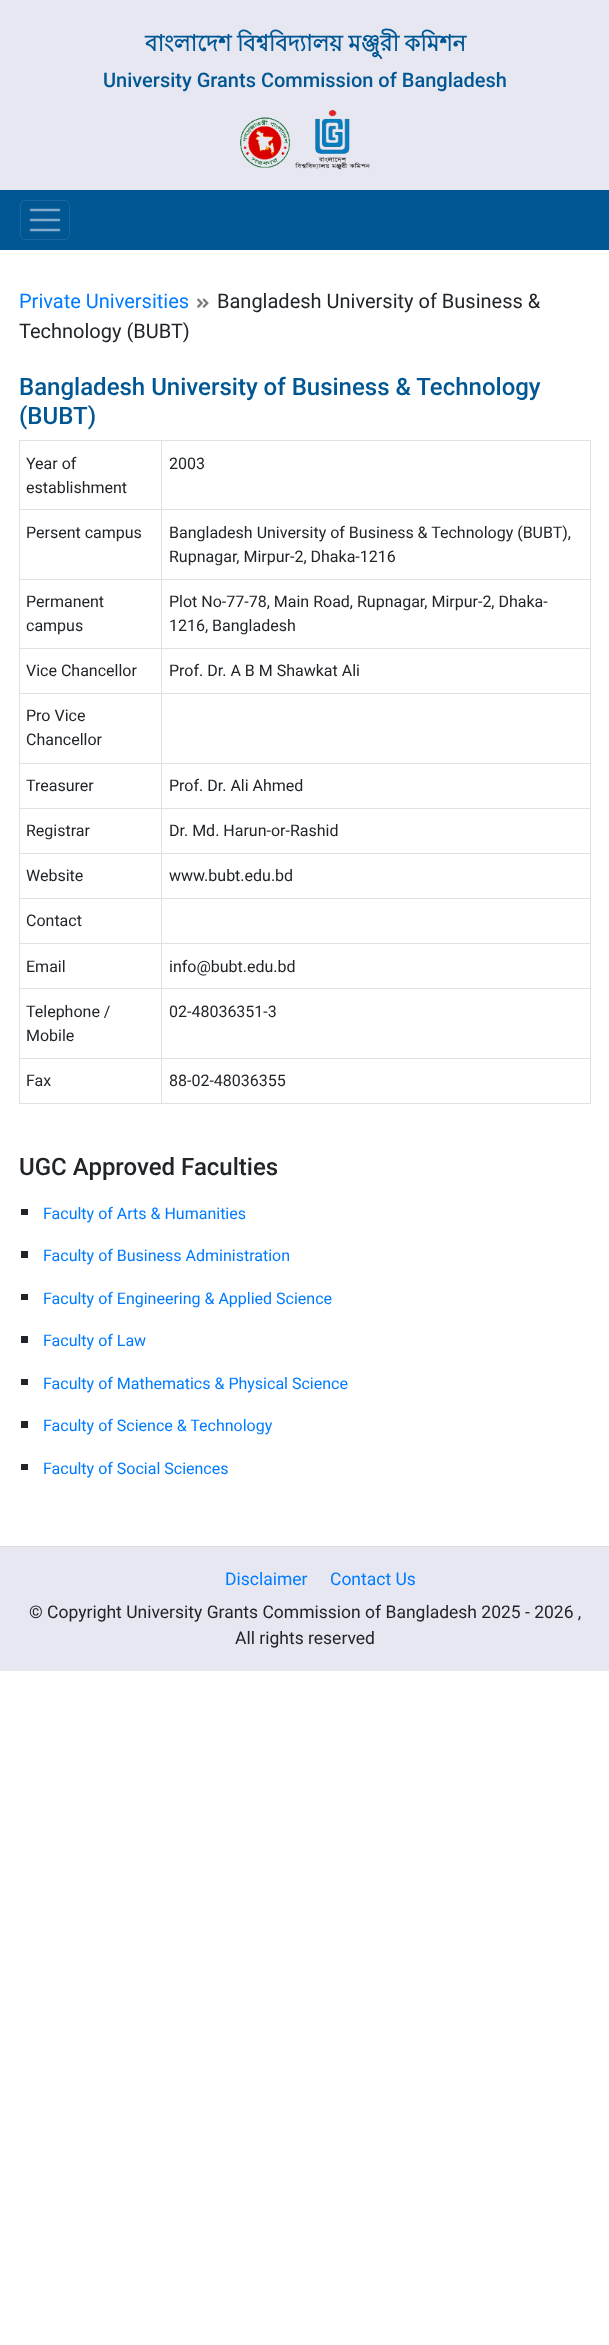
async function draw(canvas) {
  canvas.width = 609;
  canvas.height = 2345;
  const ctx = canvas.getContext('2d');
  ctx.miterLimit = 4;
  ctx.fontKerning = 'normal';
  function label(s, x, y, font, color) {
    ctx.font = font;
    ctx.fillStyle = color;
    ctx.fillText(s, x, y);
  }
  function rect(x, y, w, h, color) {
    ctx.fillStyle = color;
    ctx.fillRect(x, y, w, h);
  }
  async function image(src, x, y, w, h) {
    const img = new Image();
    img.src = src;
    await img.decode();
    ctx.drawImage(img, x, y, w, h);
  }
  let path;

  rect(0, 0, 609, 2345, '#fff');
  rect(0, 0, 609, 190, '#e7e7f1');
  ctx.wordSpacing = '-0.5px';
  label('বাংলাদেশ বিশ্ববিদ্যালয় মঞ্জুরী কমিশন', 145, 51, 'bold 22.5px Lohit Bengali', '#015794');
  ctx.wordSpacing = '0px';
  label('University Grants Commission of Bangladesh', 103, 87, '500 20px Roboto', '#015794');
  await image('assets/img1.png', 240, 117, 50, 51);
  await image('assets/img2.png', 295, 110, 75, 60);
  rect(0, 190, 609, 60, '#015794');
  ctx.beginPath();
  ctx.roundRect(20.5, 200.5, 49, 39, 4.5);
  ctx.strokeStyle = '#1a689f';
  ctx.stroke();
  path = new Path2D('M31 210H59M31 220H59M31 230H59');
  ctx.strokeStyle = '#80abca';
  ctx.lineWidth = 2.5;
  ctx.lineCap = 'round';
  ctx.stroke(path);
  label('Private Universities', 19, 308, '20px Roboto', '#007bff');
  await image('assets/img3.png', 197, 298, 12, 10);
  label('Bangladesh University of Business &', 217, 308, '20px Roboto', '#212529');
  label('Technology (BUBT)', 19, 338, '20px Roboto', '#212529');
  label('Bangladesh University of Business & Technology', 19, 395, '500 24px Roboto', '#015794');
  label('(BUBT)', 19, 424, '500 24px Roboto', '#015794');
  rect(19, 440, 572, 1, '#dee2e6');
  rect(590, 440, 1, 664, '#dee2e6');
  rect(19, 1103, 572, 1, '#dee2e6');
  rect(19, 440, 1, 664, '#dee2e6');
  rect(161, 1058, 1, 46, '#dee2e6');
  rect(161, 1058, 430, 1, '#dee2e6');
  rect(161, 988, 1, 71, '#dee2e6');
  rect(161, 988, 430, 1, '#dee2e6');
  rect(161, 943, 1, 46, '#dee2e6');
  rect(161, 943, 430, 1, '#dee2e6');
  rect(161, 898, 1, 46, '#dee2e6');
  rect(161, 898, 430, 1, '#dee2e6');
  rect(161, 853, 1, 46, '#dee2e6');
  rect(161, 853, 430, 1, '#dee2e6');
  rect(161, 808, 1, 46, '#dee2e6');
  rect(161, 808, 430, 1, '#dee2e6');
  rect(161, 763, 1, 46, '#dee2e6');
  rect(161, 763, 430, 1, '#dee2e6');
  rect(161, 693, 1, 71, '#dee2e6');
  rect(161, 693, 430, 1, '#dee2e6');
  rect(161, 648, 1, 46, '#dee2e6');
  rect(161, 648, 430, 1, '#dee2e6');
  rect(161, 579, 1, 70, '#dee2e6');
  rect(161, 579, 430, 1, '#dee2e6');
  rect(161, 509, 1, 71, '#dee2e6');
  rect(161, 509, 430, 1, '#dee2e6');
  rect(161, 440, 1, 70, '#dee2e6');
  rect(19, 509, 144, 1, '#dee2e6');
  label('Year of', 26, 469, '16px Roboto', '#212529');
  label('establishment', 26, 493, '16px Roboto', '#212529');
  label('2003', 169, 469, '16px Roboto', '#212529');
  rect(19, 579, 144, 1, '#dee2e6');
  label('Persent campus', 26, 538, '16px Roboto', '#212529');
  label('Bangladesh University of Business & Technology (BUBT),', 169, 538, '16px Roboto', '#212529');
  label('Rupnagar, Mirpur-2, Dhaka-1216', 169, 562, '16px Roboto', '#212529');
  rect(19, 648, 144, 1, '#dee2e6');
  label('Permanent', 26, 607, '16px Roboto', '#212529');
  label('campus', 26, 631, '16px Roboto', '#212529');
  label('Plot No-77-78, Main Road, Rupnagar, Mirpur-2, Dhaka-', 169, 607, '16px Roboto', '#212529');
  label('1216, Bangladesh', 169, 631, '16px Roboto', '#212529');
  rect(19, 693, 144, 1, '#dee2e6');
  label('Vice Chancellor', 26, 676, '16px Roboto', '#212529');
  label('Prof. Dr. A B M Shawkat Ali', 169, 676, '16px Roboto', '#212529');
  rect(19, 763, 144, 1, '#dee2e6');
  label('Pro Vice', 26, 721, '16px Roboto', '#212529');
  label('Chancellor', 26, 745, '16px Roboto', '#212529');
  rect(19, 808, 144, 1, '#dee2e6');
  label('Treasurer', 26, 791, '16px Roboto', '#212529');
  label('Prof. Dr. Ali Ahmed', 169, 791, '16px Roboto', '#212529');
  rect(19, 853, 144, 1, '#dee2e6');
  label('Registrar', 26, 836, '16px Roboto', '#212529');
  label('Dr. Md. Harun-or-Rashid', 169, 836, '16px Roboto', '#212529');
  rect(19, 898, 144, 1, '#dee2e6');
  label('Website', 26, 881, '16px Roboto', '#212529');
  label('www.bubt.edu.bd', 169, 881, '16px Roboto', '#212529');
  rect(19, 943, 144, 1, '#dee2e6');
  label('Contact', 26, 926, '16px Roboto', '#212529');
  rect(19, 988, 144, 1, '#dee2e6');
  label('Email', 26, 972, '16px Roboto', '#212529');
  label('info@bubt.edu.bd', 169, 972, '16px Roboto', '#212529');
  rect(19, 1058, 144, 1, '#dee2e6');
  label('Telephone /', 26, 1017, '16px Roboto', '#212529');
  label('Mobile', 26, 1041, '16px Roboto', '#212529');
  label('02-48036351-3', 169, 1017, '16px Roboto', '#212529');
  label('Fax', 26, 1086, '16px Roboto', '#212529');
  label('88-02-48036355', 169, 1086, '16px Roboto', '#212529');
  label('UGC Approved Faculties', 19, 1175, '500 24px Roboto', '#212529');
  rect(21, 1209, 7, 6, '#212529');
  label('Faculty of Arts & Humanities', 43, 1219, '16px Roboto', '#007bff');
  rect(21, 1251, 7, 7, '#212529');
  label('Faculty of Business Administration', 43, 1261, '16px Roboto', '#007bff');
  rect(21, 1294, 7, 6, '#212529');
  label('Faculty of Engineering & Applied Science', 43, 1304, '16px Roboto', '#007bff');
  rect(21, 1336, 7, 7, '#212529');
  label('Faculty of Law', 43, 1346, '16px Roboto', '#007bff');
  rect(21, 1379, 7, 6, '#212529');
  label('Faculty of Mathematics & Physical Science', 43, 1389, '16px Roboto', '#007bff');
  rect(21, 1421, 7, 7, '#212529');
  label('Faculty of Science & Technology', 43, 1431, '16px Roboto', '#007bff');
  rect(21, 1464, 7, 6, '#212529');
  label('Faculty of Social Sciences', 43, 1474, '16px Roboto', '#007bff');
  rect(0, 1547, 609, 124, '#e7e7f1');
  rect(0, 1546, 609, 1, '#ddd');
  label('Disclaimer', 225, 1585, '17.5px Roboto', '#007bff');
  label('Contact Us', 330, 1585, '17.5px Roboto', '#007bff');
  label('© Copyright University Grants Commission of Bangladesh 2025 - 2026 ,', 29, 1618, '17.5px Roboto', '#212529');
  label('All rights reserved', 235, 1644, '17.5px Roboto', '#212529');
}

draw(document.querySelector('canvas'));
